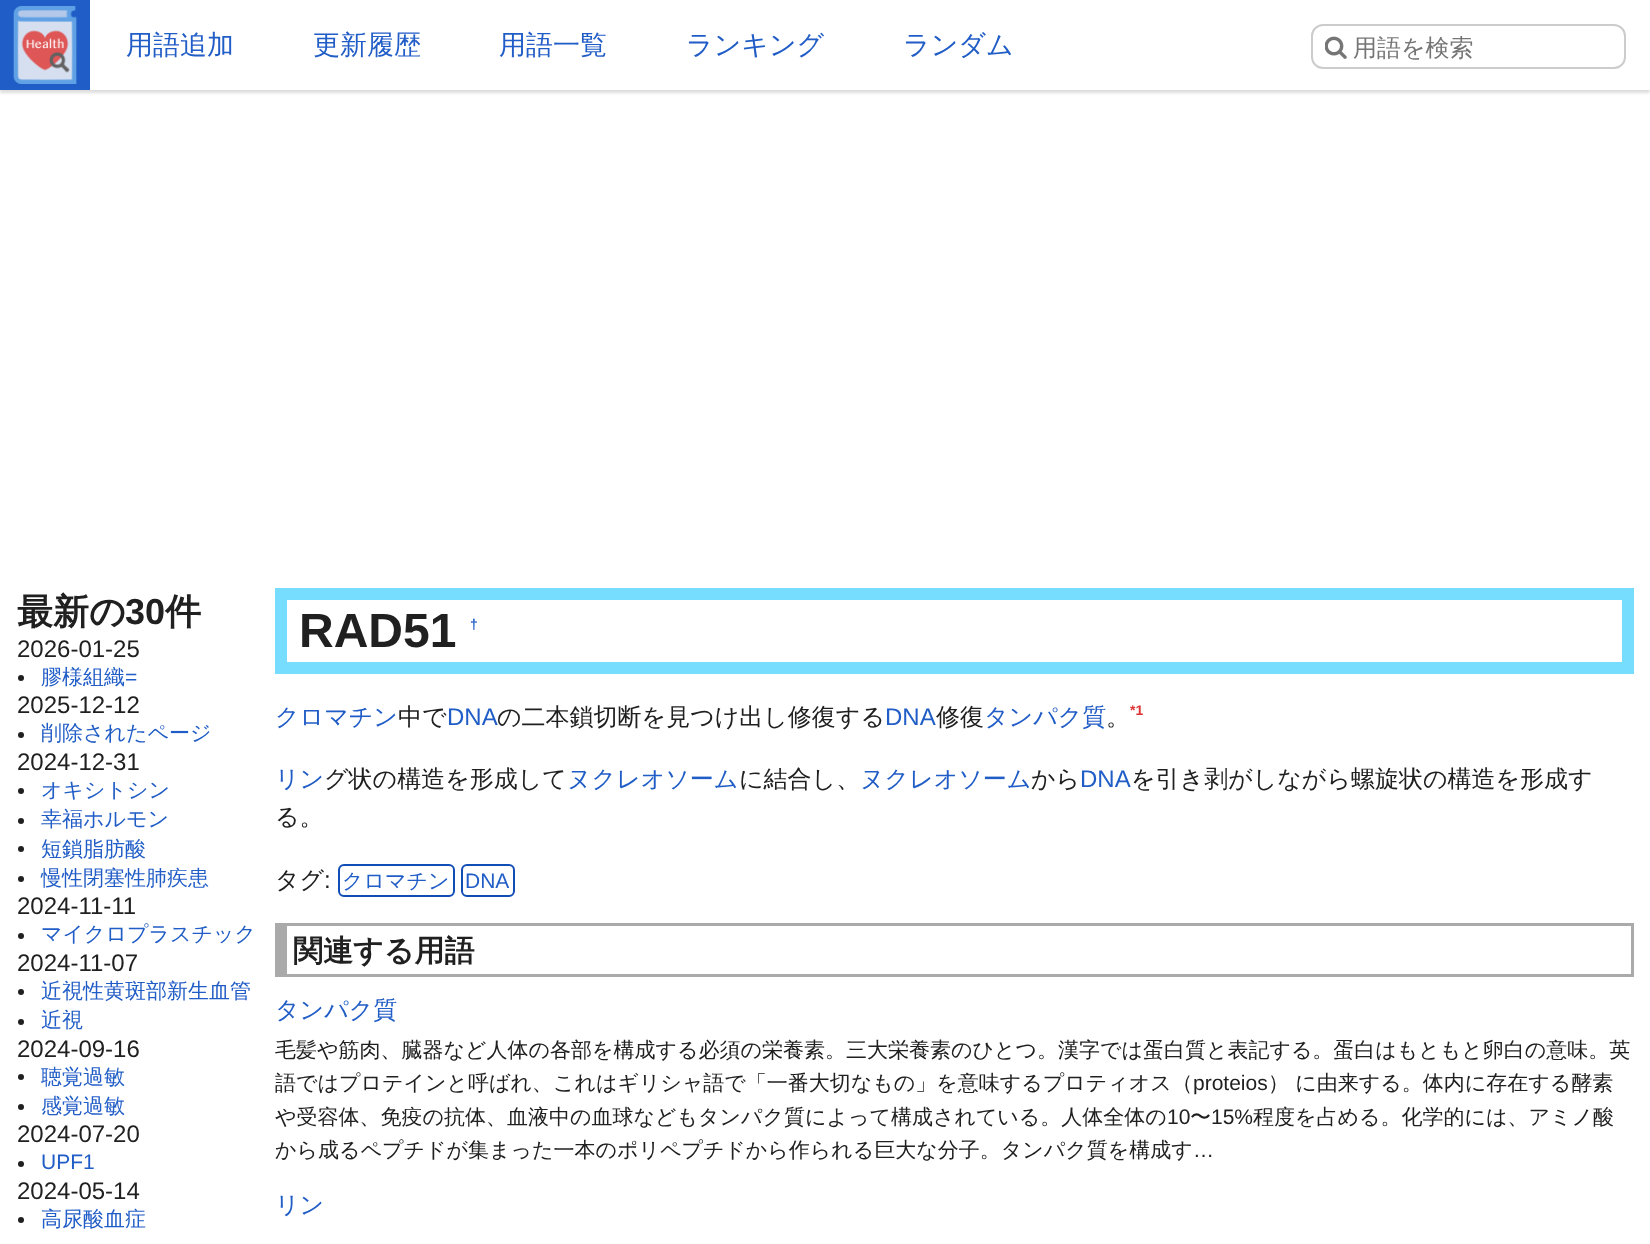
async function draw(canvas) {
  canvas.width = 1650;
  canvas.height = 1244;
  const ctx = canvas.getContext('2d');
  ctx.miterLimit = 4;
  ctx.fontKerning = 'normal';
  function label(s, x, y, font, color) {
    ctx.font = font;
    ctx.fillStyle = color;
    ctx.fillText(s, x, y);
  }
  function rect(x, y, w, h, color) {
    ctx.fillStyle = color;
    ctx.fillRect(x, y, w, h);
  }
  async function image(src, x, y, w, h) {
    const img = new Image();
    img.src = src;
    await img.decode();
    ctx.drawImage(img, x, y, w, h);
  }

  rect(0, 0, 1650, 1244, '#fff');
  ctx.save();
  ctx.beginPath();
  ctx.rect(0, 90, 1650, 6);
  ctx.clip();
  ctx.fillStyle = '#ddd';
  ctx.filter = 'blur(1.5px)';
  ctx.beginPath();
  ctx.rect(0, 3, 1650, 90);
  ctx.fill();
  ctx.filter = 'none';
  ctx.restore();
  rect(0, 0, 90, 90, '#215dc6');
  await image('assets/img1.png', 13, 6, 64, 78);
  label('用語追加', 126, 54, '500 27px WenQuanYi Zen Hei', '#215dc6');
  label('更新履歴', 313, 54, '500 27px WenQuanYi Zen Hei', '#215dc6');
  label('用語一覧', 499, 54, '500 27px WenQuanYi Zen Hei', '#215dc6');
  label('ランキング', 686, 54, '500 27px WenQuanYi Zen Hei', '#215dc6');
  label('ランダム', 903, 54, '500 27px WenQuanYi Zen Hei', '#215dc6');
  ctx.beginPath();
  ctx.roundRect(1312, 25, 313, 43, 11);
  ctx.strokeStyle = '#ccc';
  ctx.lineWidth = 2;
  ctx.stroke();
  await image('assets/img2.png', 1325, 36, 22, 23);
  label('用語を検索', 1353, 56, '500 24px WenQuanYi Zen Hei', '#757575');
  label('最新の', 17, 624, 'bold 36px WenQuanYi Zen Hei', '#202020');
  label('30', 125, 624, 'bold 36px Liberation Sans', '#202020');
  label('件', 165, 624, 'bold 36px WenQuanYi Zen Hei', '#202020');
  label('2026-01-25', 17, 657, '24px Liberation Sans', '#202020');
  ctx.beginPath();
  ctx.arc(21, 678, 3, 0, 2 * Math.PI);
  ctx.fill();
  label('膠様組織', 41, 684, '500 21px WenQuanYi Zen Hei', '#215dc6');
  label('=', 125, 684, '21px Liberation Sans', '#215dc6');
  label('2025-12-12', 17, 713, '24px Liberation Sans', '#202020');
  ctx.beginPath();
  ctx.arc(21, 735, 3, 0, 2 * Math.PI);
  ctx.fill();
  label('削除されたページ', 41, 740, '500 21px WenQuanYi Zen Hei', '#215dc6');
  label('2024-12-31', 17, 770, '24px Liberation Sans', '#202020');
  ctx.beginPath();
  ctx.arc(21, 791, 3, 0, 2 * Math.PI);
  ctx.fill();
  label('オキシトシン', 41, 797, '500 21px WenQuanYi Zen Hei', '#215dc6');
  ctx.fillStyle = '#202020';
  ctx.beginPath();
  ctx.arc(21, 821, 3, 0, 2 * Math.PI);
  ctx.fill();
  label('幸福ホルモン', 41, 826, '500 21px WenQuanYi Zen Hei', '#215dc6');
  ctx.fillStyle = '#202020';
  ctx.beginPath();
  ctx.arc(21, 849, 3, 0, 2 * Math.PI);
  ctx.fill();
  label('短鎖脂肪酸', 41, 856, '500 21px WenQuanYi Zen Hei', '#215dc6');
  ctx.fillStyle = '#202020';
  ctx.beginPath();
  ctx.arc(21, 879, 3, 0, 2 * Math.PI);
  ctx.fill();
  label('慢性閉塞性肺疾患', 41, 885, '500 21px WenQuanYi Zen Hei', '#215dc6');
  label('2024-11-11', 17, 914, '24px Liberation Sans', '#202020');
  ctx.beginPath();
  ctx.arc(21, 936, 3, 0, 2 * Math.PI);
  ctx.fill();
  label('マイクロプラスチック', 41, 941, '500 21px WenQuanYi Zen Hei', '#215dc6');
  label('2024-11-07', 17, 971, '24px Liberation Sans', '#202020');
  ctx.beginPath();
  ctx.arc(21, 992, 3, 0, 2 * Math.PI);
  ctx.fill();
  label('近視性黄斑部新生血管', 41, 998, '500 21px WenQuanYi Zen Hei', '#215dc6');
  ctx.fillStyle = '#202020';
  ctx.beginPath();
  ctx.arc(21, 1022, 3, 0, 2 * Math.PI);
  ctx.fill();
  label('近視', 41, 1027, '500 21px WenQuanYi Zen Hei', '#215dc6');
  label('2024-09-16', 17, 1057, '24px Liberation Sans', '#202020');
  ctx.beginPath();
  ctx.arc(21, 1077, 3, 0, 2 * Math.PI);
  ctx.fill();
  label('聴覚過敏', 41, 1084, '500 21px WenQuanYi Zen Hei', '#215dc6');
  ctx.fillStyle = '#202020';
  ctx.beginPath();
  ctx.arc(21, 1107, 3, 0, 2 * Math.PI);
  ctx.fill();
  label('感覚過敏', 41, 1113, '500 21px WenQuanYi Zen Hei', '#215dc6');
  label('2024-07-20', 17, 1142, '24px Liberation Sans', '#202020');
  ctx.beginPath();
  ctx.arc(21, 1164, 3, 0, 2 * Math.PI);
  ctx.fill();
  label('UPF1', 41, 1169, '21px Liberation Sans', '#215dc6');
  label('2024-05-14', 17, 1199, '24px Liberation Sans', '#202020');
  ctx.beginPath();
  ctx.arc(21, 1220, 3, 0, 2 * Math.PI);
  ctx.fill();
  label('高尿酸血症', 41, 1226, '500 21px WenQuanYi Zen Hei', '#215dc6');
  ctx.strokeStyle = '#7df';
  ctx.lineWidth = 12;
  ctx.strokeRect(281, 594, 1347, 74);
  label('RAD51', 299, 647, 'bold 48px Liberation Sans', '#202020');
  label('†', 470, 629, 'bold 14px Liberation Sans', '#215dc6');
  label('クロマチン', 275, 725, '500 24px WenQuanYi Zen Hei', '#215dc6');
  label('中で', 398, 725, '500 24px WenQuanYi Zen Hei', '#202020');
  label('DNA', 447, 725, '24px Liberation Sans', '#215dc6');
  label('の二本鎖切断を見つけ出し修復する', 497, 725, '500 24px WenQuanYi Zen Hei', '#202020');
  label('DNA', 885, 725, '24px Liberation Sans', '#215dc6');
  label('修復', 936, 725, '500 24px WenQuanYi Zen Hei', '#202020');
  label('タンパク質', 984, 725, '500 24px WenQuanYi Zen Hei', '#215dc6');
  label('。', 1106, 725, '500 24px WenQuanYi Zen Hei', '#202020');
  label('*1', 1130, 715, 'bold 14px Liberation Sans', '#d33');
  label('リン', 275, 787, '500 24px WenQuanYi Zen Hei', '#215dc6');
  label('グ状の構造を形成して', 324, 787, '500 24px WenQuanYi Zen Hei', '#202020');
  label('ヌクレオソーム', 567, 787, '500 24px WenQuanYi Zen Hei', '#215dc6');
  label('に結合し、', 739, 787, '500 24px WenQuanYi Zen Hei', '#202020');
  label('ヌクレオソーム', 860, 787, '500 24px WenQuanYi Zen Hei', '#215dc6');
  label('から', 1031, 787, '500 24px WenQuanYi Zen Hei', '#202020');
  label('DNA', 1080, 787, '24px Liberation Sans', '#215dc6');
  label('を引き剥がしながら螺旋状の構造を形成す', 1131, 787, '500 24px WenQuanYi Zen Hei', '#202020');
  label('る。', 275, 825, '500 24px WenQuanYi Zen Hei', '#202020');
  label('タグ', 275, 888, '500 24px WenQuanYi Zen Hei', '#202020');
  label(':', 324, 888, '24px Liberation Sans', '#202020');
  ctx.beginPath();
  ctx.roundRect(339, 865, 115, 31, 5);
  ctx.strokeStyle = '#114db6';
  ctx.lineWidth = 2;
  ctx.stroke();
  label('クロマチン', 342, 888, '500 21px WenQuanYi Zen Hei', '#215dc6');
  ctx.beginPath();
  ctx.roundRect(462, 865, 52, 31, 5);
  ctx.stroke();
  label('DNA', 465, 888, '21px Liberation Sans', '#215dc6');
  rect(287, 923, 1347, 3, '#aaa');
  rect(1631, 923, 3, 54, '#aaa');
  rect(287, 974, 1347, 3, '#aaa');
  rect(275, 923, 12, 54, '#aaa');
  label('関連する用語', 293, 961, 'bold 30px WenQuanYi Zen Hei', '#202020');
  label('タンパク質', 275, 1018, '500 24px WenQuanYi Zen Hei', '#215dc6');
  label('毛髪や筋肉、臓器など人体の各部を構成する必須の栄養素。三大栄養素のひとつ。漢字では蛋白質と表記する。蛋白はもともと卵白の意味。英', 275, 1057, '500 21px WenQuanYi Zen Hei', '#202020');
  label('語ではプロテインと呼ばれ、これはギリシャ語で「一番大切なもの」を意味するプロティオス（', 275, 1090, '500 21px WenQuanYi Zen Hei', '#202020');
  label('proteios', 1193, 1090, '21px Liberation Sans', '#202020');
  label('） に由来する。体内に存在する酵素', 1268, 1090, '500 21px WenQuanYi Zen Hei', '#202020');
  label('や受容体、免疫の抗体、血液中の血球などもタンパク質によって構成されている。人体全体の', 275, 1124, '500 21px WenQuanYi Zen Hei', '#202020');
  label('10', 1167, 1124, '21px Liberation Sans', '#202020');
  label('〜', 1190, 1124, '500 21px WenQuanYi Zen Hei', '#202020');
  label('15%', 1211, 1124, '21px Liberation Sans', '#202020');
  label('程度を占める。化学的には、アミノ酸', 1253, 1124, '500 21px WenQuanYi Zen Hei', '#202020');
  label('から成るペプチドが集まった一本のポリペプチドから作られる巨大な分子。タンパク質を構成す', 275, 1157, '500 21px WenQuanYi Zen Hei', '#202020');
  label('…', 1193, 1157, '21px Liberation Sans', '#202020');
  label('リン', 275, 1213, '500 24px WenQuanYi Zen Hei', '#215dc6');
}

draw(document.querySelector('canvas'));
